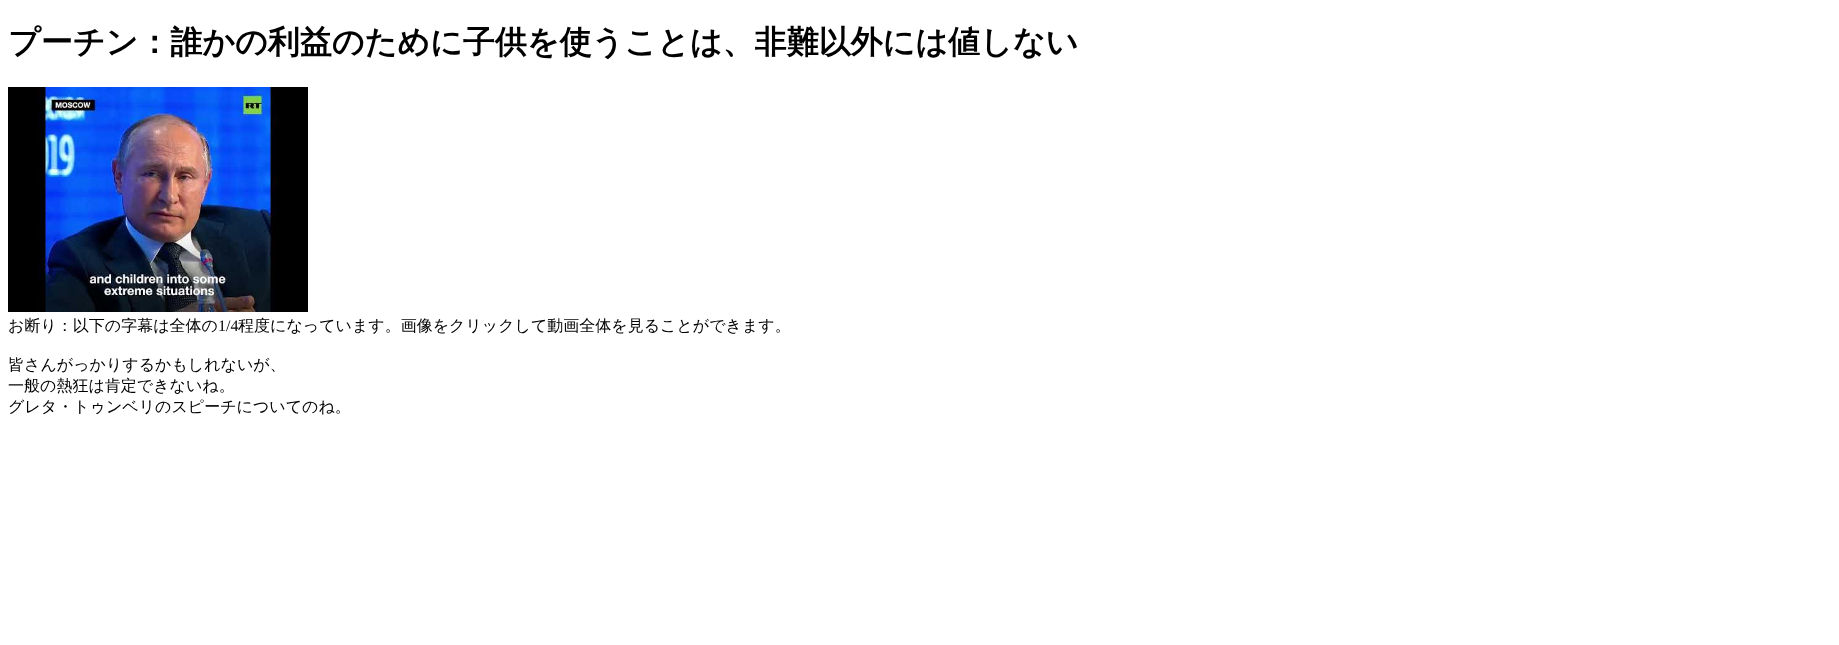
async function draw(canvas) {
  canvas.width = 1839;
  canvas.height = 645;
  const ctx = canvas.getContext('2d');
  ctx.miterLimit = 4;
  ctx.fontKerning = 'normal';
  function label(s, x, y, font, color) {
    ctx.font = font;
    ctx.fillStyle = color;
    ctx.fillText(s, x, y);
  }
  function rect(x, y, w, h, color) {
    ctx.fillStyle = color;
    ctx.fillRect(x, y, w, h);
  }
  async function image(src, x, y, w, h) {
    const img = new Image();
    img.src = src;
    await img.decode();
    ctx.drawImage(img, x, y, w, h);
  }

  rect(0, 0, 1839, 645, '#fff');
  label('プーチン：誰かの利益のために子供を使うことは、非難以外には値しない', 8, 53, 'bold 32px WenQuanYi Zen Hei', '#000');
  await image('assets/img1.png', 8, 87, 300, 225);
  label('お断り：以下の字幕は全体の', 8, 331, '500 16px WenQuanYi Zen Hei', '#000');
  label('1/4', 218, 331, '16px Liberation Serif', '#000');
  label('程度になっています。画像をクリックして動画全体を見ることができます。', 238, 331, '500 16px WenQuanYi Zen Hei', '#000');
  label('皆さんがっかりするかもしれないが、', 8, 370, '500 16px WenQuanYi Zen Hei', '#000');
  label('一般の熱狂は肯定できないね。', 8, 391, '500 16px WenQuanYi Zen Hei', '#000');
  label('グレタ・トゥンベリのスピーチについてのね。', 8, 412, '500 16px WenQuanYi Zen Hei', '#000');
}

draw(document.querySelector('canvas'));
